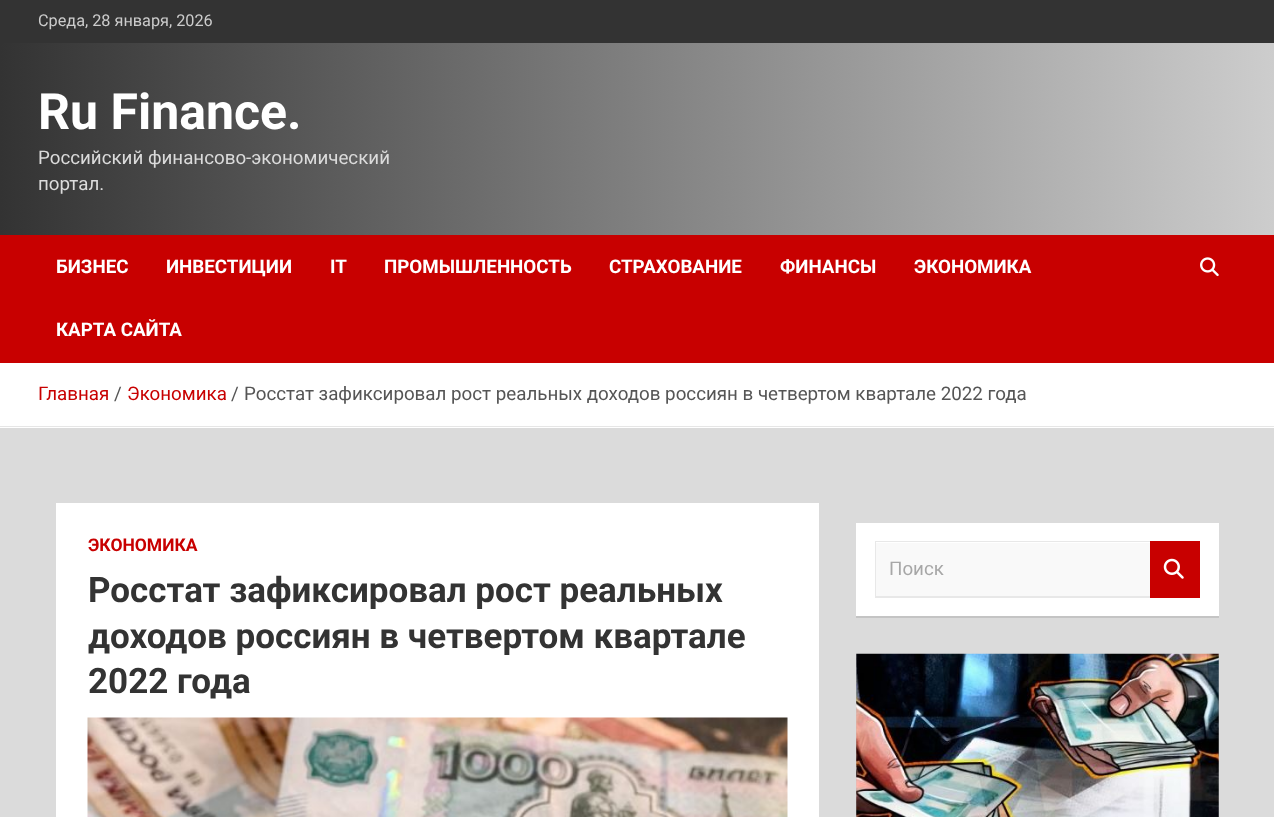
async function draw(canvas) {
  canvas.width = 1274;
  canvas.height = 817;
  const ctx = canvas.getContext('2d');
  ctx.miterLimit = 4;
  ctx.fontKerning = 'normal';
  function label(s, x, y, font, color) {
    ctx.font = font;
    ctx.fillStyle = color;
    ctx.fillText(s, x, y);
  }
  function rect(x, y, w, h, color) {
    ctx.fillStyle = color;
    ctx.fillRect(x, y, w, h);
  }
  async function image(src, x, y, w, h) {
    const img = new Image();
    img.src = src;
    await img.decode();
    ctx.drawImage(img, x, y, w, h);
  }
  let gradient, path;

  rect(0, 0, 1274, 817, '#dbdbdb');
  rect(0, 0, 1274, 43, '#333');
  label('Среда, 28 января, 2026', 38, 26, '16.25px Roboto', '#ccc');
  gradient = ctx.createLinearGradient(0, 139, 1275, 139);
  gradient.addColorStop(0, '#333');
  gradient.addColorStop(1, '#cdcdcd');
  ctx.fillStyle = gradient;
  ctx.fillRect(0, 43, 1274, 192);
  label('Ru Finance.', 38, 129, 'bold 50px Roboto', '#fff');
  label('Российский финансово-экономический', 38, 164, '18.75px Roboto', '#dbdbdb');
  label('портал.', 38, 190, '18.75px Roboto', '#dbdbdb');
  rect(0, 235, 1274, 128, '#c80000');
  label('БИЗНЕС', 56, 273, 'bold 18.75px Roboto', '#fff');
  label('ИНВЕСТИЦИИ', 166, 273, 'bold 18.75px Roboto', '#fff');
  label('IT', 330, 273, 'bold 18.75px Roboto', '#fff');
  label('ПРОМЫШЛЕННОСТЬ', 384, 273, 'bold 18.75px Roboto', '#fff');
  label('СТРАХОВАНИЕ', 609, 273, 'bold 18.75px Roboto', '#fff');
  label('ФИНАНСЫ', 780, 273, 'bold 18.75px Roboto', '#fff');
  label('ЭКОНОМИКА', 914, 273, 'bold 18.75px Roboto', '#fff');
  label('КАРТА САЙТА', 56, 336, 'bold 18.75px Roboto', '#fff');
  await image('assets/img1.png', 1200, 257, 19, 20);
  rect(0, 363, 1274, 65, '#fff');
  rect(0, 426, 1274, 1, '#e6e6e6');
  label('Главная', 38, 400, '18.75px Roboto', '#c80000');
  label('/', 114, 400, '18.75px Roboto', '#555');
  label('Экономика', 127, 400, '18.75px Roboto', '#c80000');
  label('/', 231, 400, '18.75px Roboto', '#555');
  label('Росстат зафиксировал рост реальных доходов россиян в четвертом квартале 2022 года', 244, 400, '18.75px Roboto', '#555');
  rect(56, 503, 763, 314, '#fff');
  label('ЭКОНОМИКА', 88, 551, 'bold 17.5px Roboto', '#c80000');
  label('Росстат зафиксировал рост реальных', 88, 602, 'bold 35px Roboto', '#333');
  label('доходов россиян в четвертом квартале', 88, 648, 'bold 35px Roboto', '#333');
  label('2022 года', 88, 693, 'bold 35px Roboto', '#333');
  await image('assets/img2.png', 87, 717, 701, 100);
  ctx.fillStyle = '#0000001a';
  ctx.filter = 'blur(0.5px)';
  ctx.beginPath();
  ctx.rect(856, 524, 363, 94);
  ctx.fill();
  ctx.filter = 'none';
  rect(856, 523, 363, 93, '#fff');
  rect(876, 543, 274, 53, '#f9f9f9');
  ctx.fillStyle = '#e8e8e8';
  path = new Path2D('M875 541H1150V542H876Z');
  ctx.fill(path);
  path = new Path2D('M1150 598H875L876 596H1150Z');
  ctx.fill(path);
  ctx.fillStyle = '#00000017';
  path = new Path2D('M875 598V541L876 542V596Z');
  ctx.fill(path);
  label('Поиск', 889, 575, '18.75px Roboto', '#a7a7a7');
  rect(1150, 541, 50, 57, '#c80000');
  await image('assets/img3.png', 1163, 558, 21, 21);
  ctx.fillStyle = '#0000001a';
  ctx.filter = 'blur(0.5px)';
  ctx.beginPath();
  ctx.rect(856, 655, 363, 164);
  ctx.fill();
  ctx.filter = 'none';
  await image('assets/img4.png', 856, 653, 363, 164);
}

draw(document.querySelector('canvas'));
